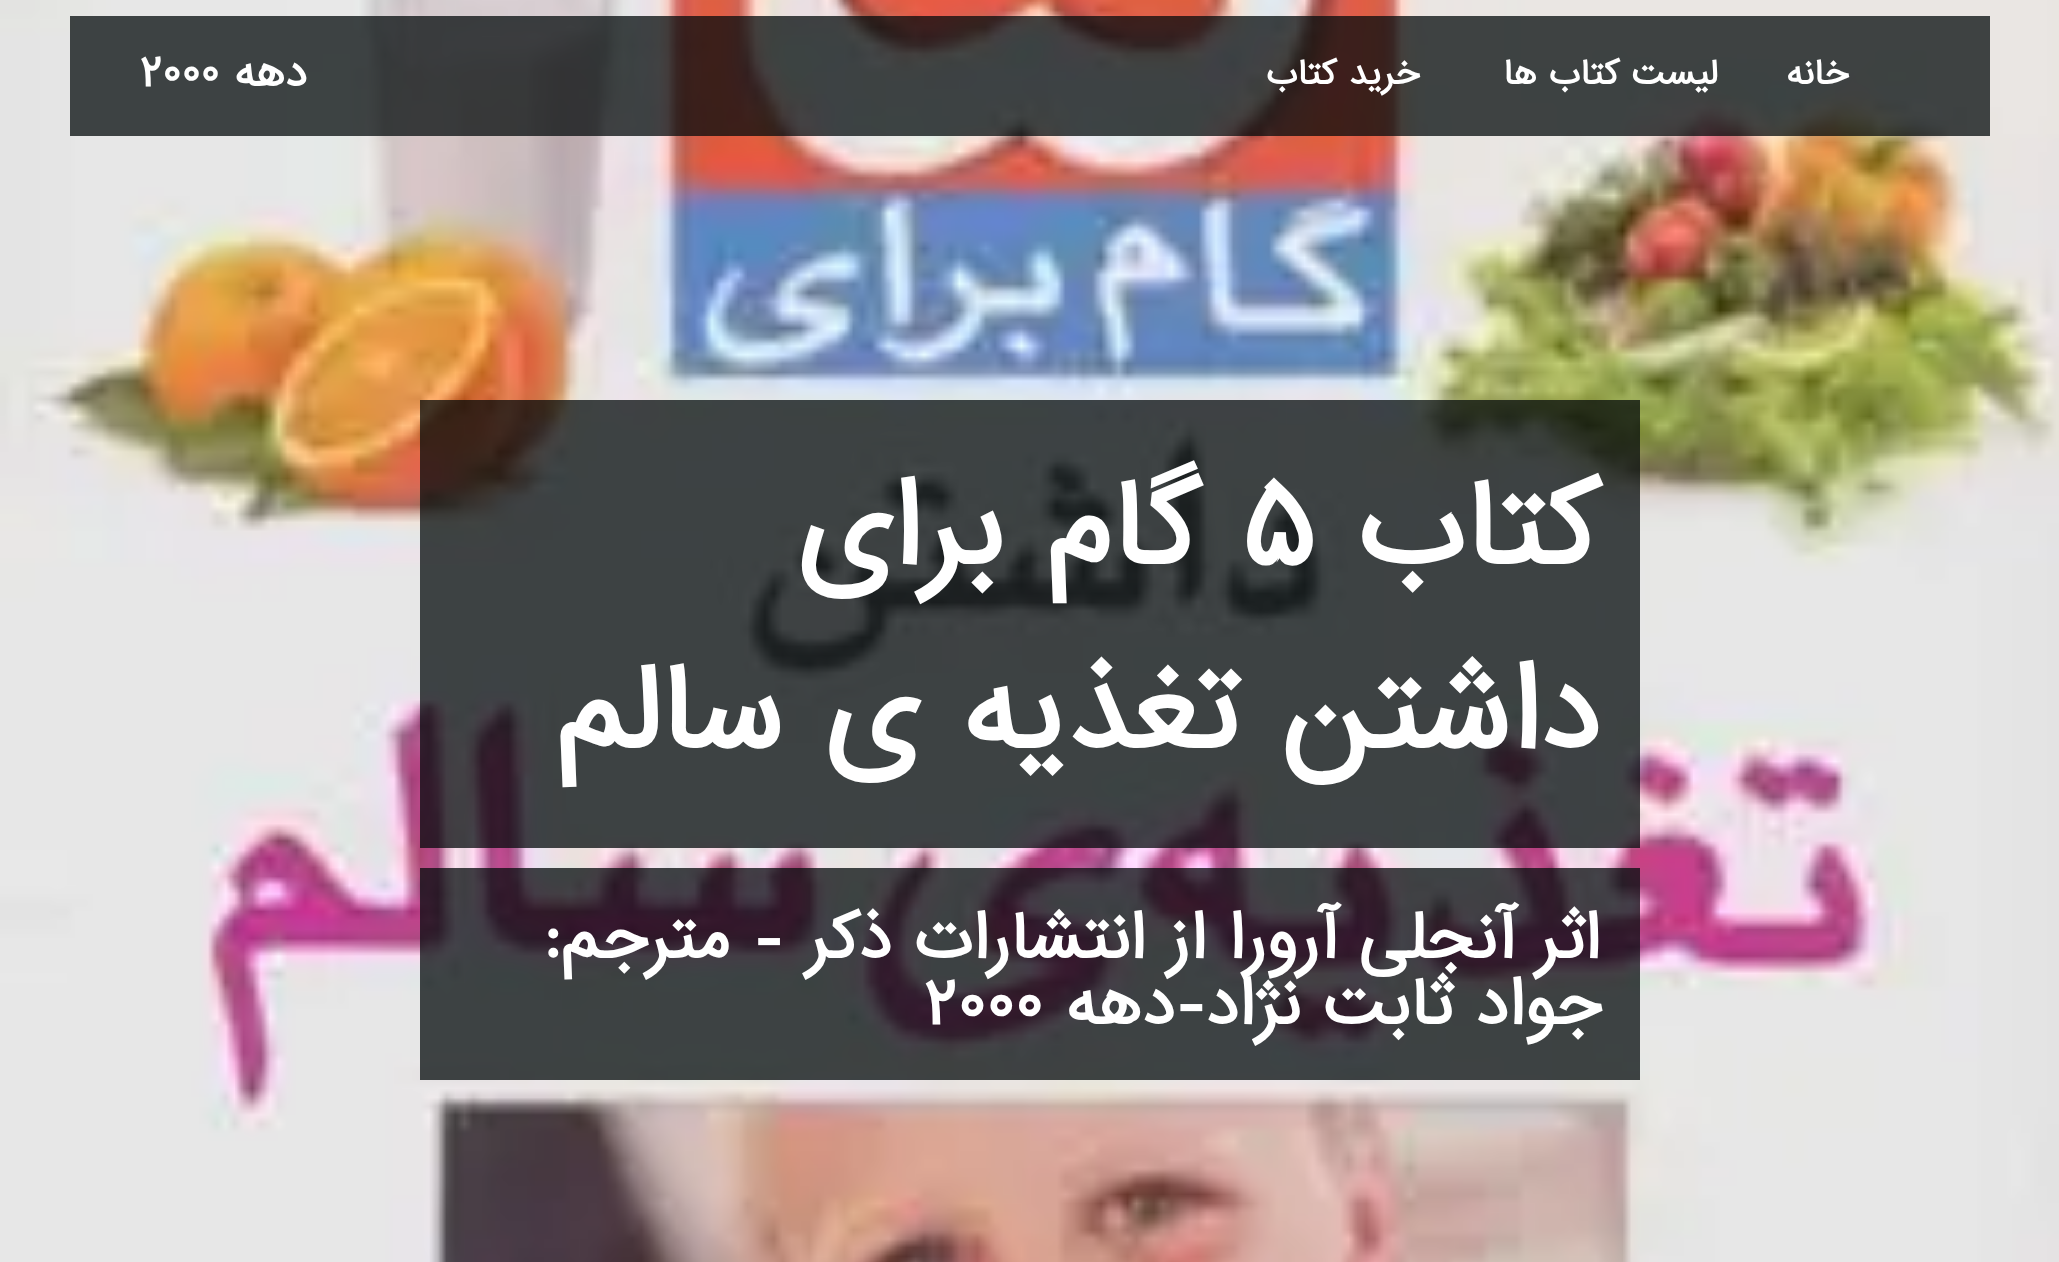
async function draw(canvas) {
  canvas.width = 2059;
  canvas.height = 1262;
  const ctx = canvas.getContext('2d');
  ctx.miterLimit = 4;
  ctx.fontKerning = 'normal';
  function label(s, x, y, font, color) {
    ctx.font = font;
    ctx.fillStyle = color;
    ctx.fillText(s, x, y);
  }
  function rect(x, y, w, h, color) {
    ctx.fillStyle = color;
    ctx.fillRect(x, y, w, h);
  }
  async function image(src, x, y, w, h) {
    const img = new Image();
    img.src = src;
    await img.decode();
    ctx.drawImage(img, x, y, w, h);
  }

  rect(0, 0, 2059, 1262, '#fff');
  await image('assets/img1.png', 0, 0, 2059, 1262);
  rect(70, 16, 1920, 120, '#040b0cbf');
  ctx.letterSpacing = '2px';
  ctx.direction = 'rtl';
  label('خانه', 1848, 84, 'bold 32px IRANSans', '#fff');
  ctx.wordSpacing = '-2px';
  label('لیست کتاب ها', 1718, 84, 'bold 32px IRANSans', '#fff');
  label('خرید کتاب', 1419, 84, 'bold 32px IRANSans', '#fff');
  ctx.letterSpacing = '0px';
  ctx.wordSpacing = '0px';
  label('دهه', 307, 86, 'bold 40px IRANSans', '#fff');
  ctx.direction = 'ltr';
  label('2000', 140, 86, 'bold 40px IRANSans', '#fff');
  rect(420, 400, 1220, 448, '#040b0cbf');
  ctx.direction = 'rtl';
  label('کتاب', 1600, 564, 'bold 110px IRANSans', '#fff');
  ctx.direction = 'ltr';
  label('5', 1241, 564, 'bold 110px IRANSans', '#fff');
  ctx.direction = 'rtl';
  label('گام برای', 1200, 564, 'bold 110px IRANSans', '#fff');
  label('داشتن تغذیه ی سالم', 1600, 748, 'bold 110px IRANSans', '#fff');
  rect(420, 868, 1220, 212, '#040b0cbf');
  label('اثر آنجلی آرورا از انتشارات ذکر - مترجم:', 1600, 958, 'bold 60px IRANSans', '#fff');
  label('جواد ثابت نژاد-دهه', 1600, 1024, 'bold 60px IRANSans', '#fff');
  ctx.direction = 'ltr';
  label('2000', 924, 1024, 'bold 60px IRANSans', '#fff');
}

draw(document.querySelector('canvas'));
